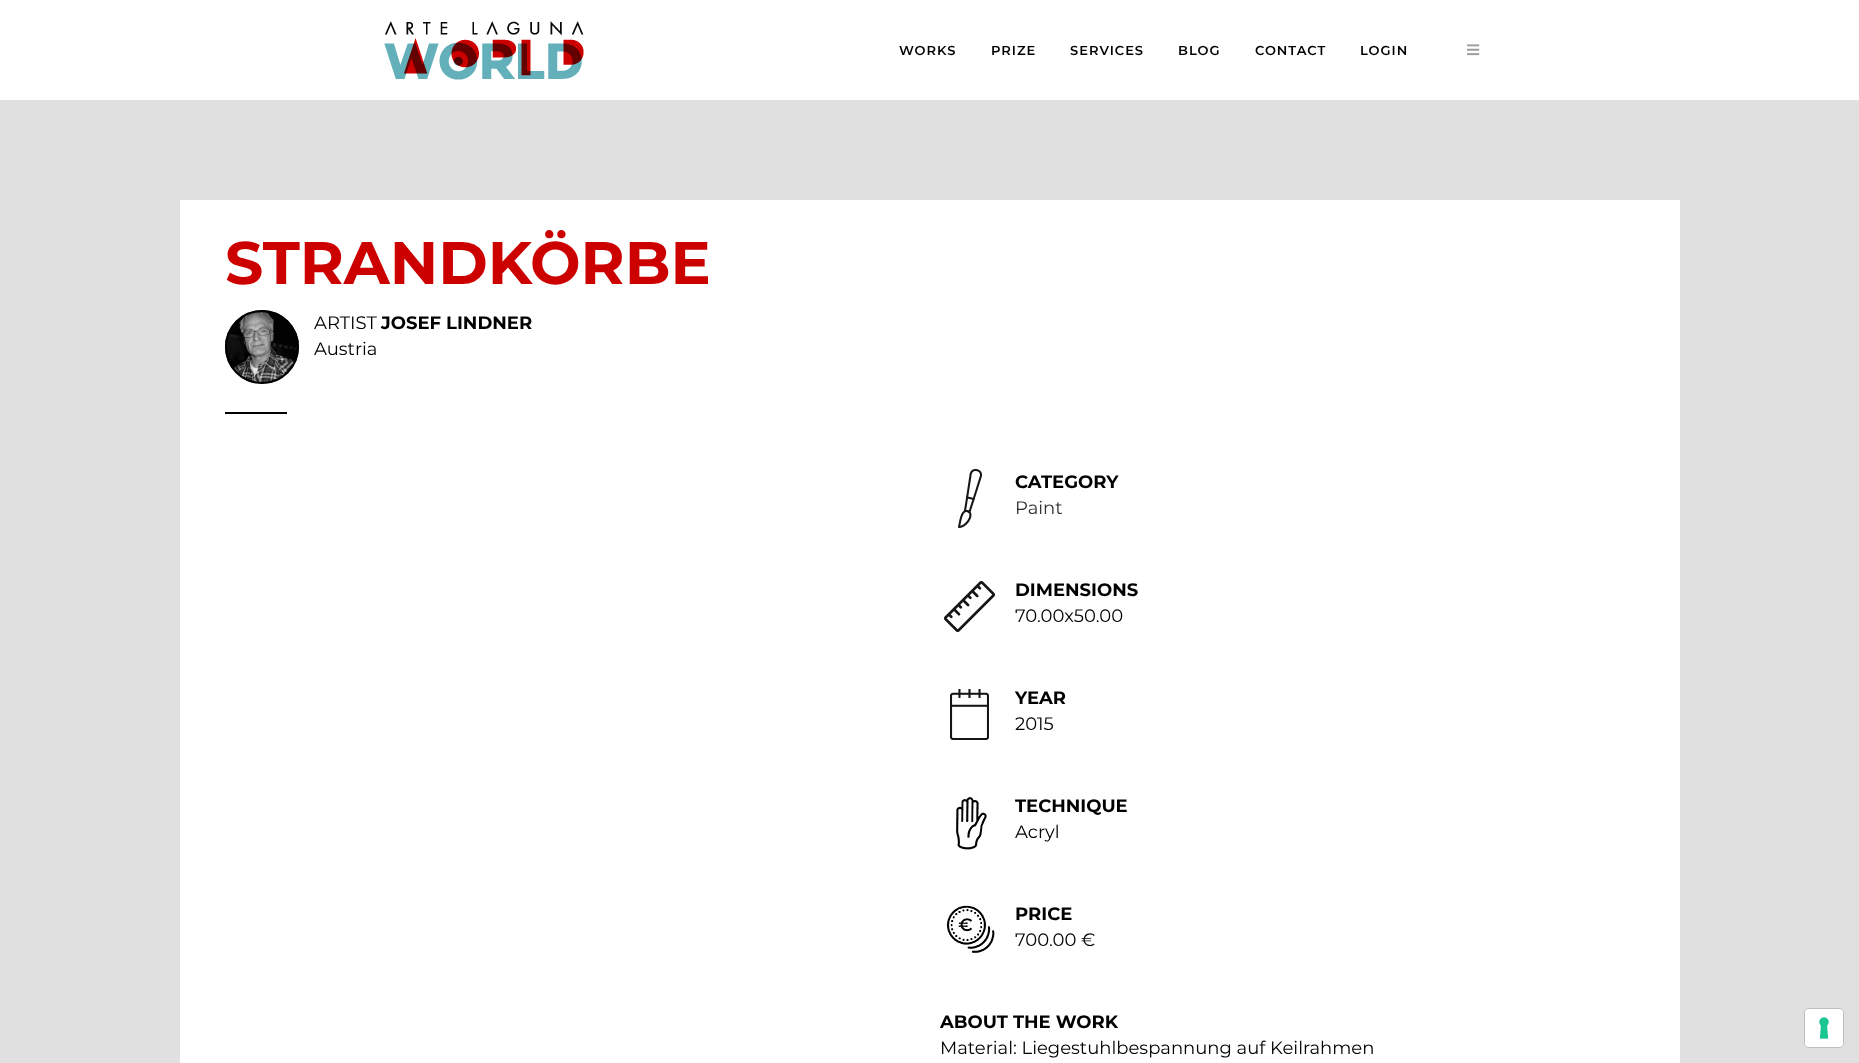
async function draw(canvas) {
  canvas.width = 1859;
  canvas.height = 1063;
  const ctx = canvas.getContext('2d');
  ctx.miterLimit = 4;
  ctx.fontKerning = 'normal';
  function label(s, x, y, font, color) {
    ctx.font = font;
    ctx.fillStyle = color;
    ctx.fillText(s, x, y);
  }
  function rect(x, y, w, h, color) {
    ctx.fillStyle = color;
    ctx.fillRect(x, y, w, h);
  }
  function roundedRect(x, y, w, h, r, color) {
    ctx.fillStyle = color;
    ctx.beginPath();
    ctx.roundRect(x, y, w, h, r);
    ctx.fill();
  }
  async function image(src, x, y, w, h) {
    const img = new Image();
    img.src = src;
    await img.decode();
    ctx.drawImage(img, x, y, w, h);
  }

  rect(0, 0, 1859, 1063, '#e0e0e0');
  rect(0, 0, 1859, 100, '#fff');
  await image('assets/img1.png', 384, 21, 200, 59);
  ctx.letterSpacing = '1px';
  label('WORKS', 899, 55, '600 13px Montserrat', '#000');
  label('PRIZE', 991, 55, '600 13px Montserrat', '#000');
  label('SERVICES', 1070, 55, '600 13px Montserrat', '#000');
  label('BLOG', 1178, 55, '600 13px Montserrat', '#000');
  label('CONTACT', 1255, 55, '600 13px Montserrat', '#000');
  label('LOGIN', 1360, 55, '600 13px Montserrat', '#000');
  await image('assets/img2.png', 1467, 44, 13, 12);
  rect(180, 200, 1500, 863, '#fff');
  ctx.letterSpacing = '0px';
  label('STRANDKÖRBE', 225, 284, 'bold 60px Montserrat', '#cd0000');
  await image('assets/img3.png', 225, 310, 74, 74);
  ctx.beginPath();
  ctx.arc(262, 347, 36, 0, 2 * Math.PI);
  ctx.strokeStyle = '#000';
  ctx.lineWidth = 2;
  ctx.stroke();
  label('ARTIST', 314, 329, '18px Montserrat', '#000');
  label('JOSEF LINDNER', 381, 329, 'bold 18px Montserrat', '#000');
  label('Austria', 314, 355, '18px Montserrat', '#000');
  rect(225, 412, 62, 2, '#000');
  await image('assets/img4.png', 958, 469, 24, 59);
  label('CATEGORY', 1015, 488, 'bold 18px Montserrat', '#000');
  label('Paint', 1015, 514, '18px Montserrat', '#303030');
  await image('assets/img5.png', 944, 581, 51, 51);
  label('DIMENSIONS', 1015, 596, 'bold 18px Montserrat', '#000');
  label('70.00x50.00', 1015, 622, '18px Montserrat', '#000');
  await image('assets/img6.png', 950, 689, 39, 51);
  label('YEAR', 1015, 704, 'bold 18px Montserrat', '#000');
  label('2015', 1015, 730, '18px Montserrat', '#000');
  await image('assets/img7.png', 956, 793, 32, 57);
  label('TECHNIQUE', 1015, 812, 'bold 18px Montserrat', '#000');
  label('Acryl', 1015, 838, '18px Montserrat', '#000');
  await image('assets/img8.png', 945, 902, 50, 55);
  label('PRICE', 1015, 920, 'bold 18px Montserrat', '#000');
  label('700.00 €', 1015, 946, '18px Montserrat', '#000');
  label('ABOUT THE WORK', 940, 1028, 'bold 18px Montserrat', '#000');
  label('Material: Liegestuhlbespannung auf Keilrahmen', 940, 1054, '18px Montserrat', '#000');
  ctx.beginPath();
  ctx.roundRect(1804.5, 1008.5, 39, 39, 4.5);
  ctx.strokeStyle = '#bebebe';
  ctx.lineWidth = 1;
  ctx.stroke();
  roundedRect(1805, 1009, 38, 38, 4, '#fff');
  await image('assets/img9.png', 1819, 1017, 10, 22);
}

draw(document.querySelector('canvas'));
